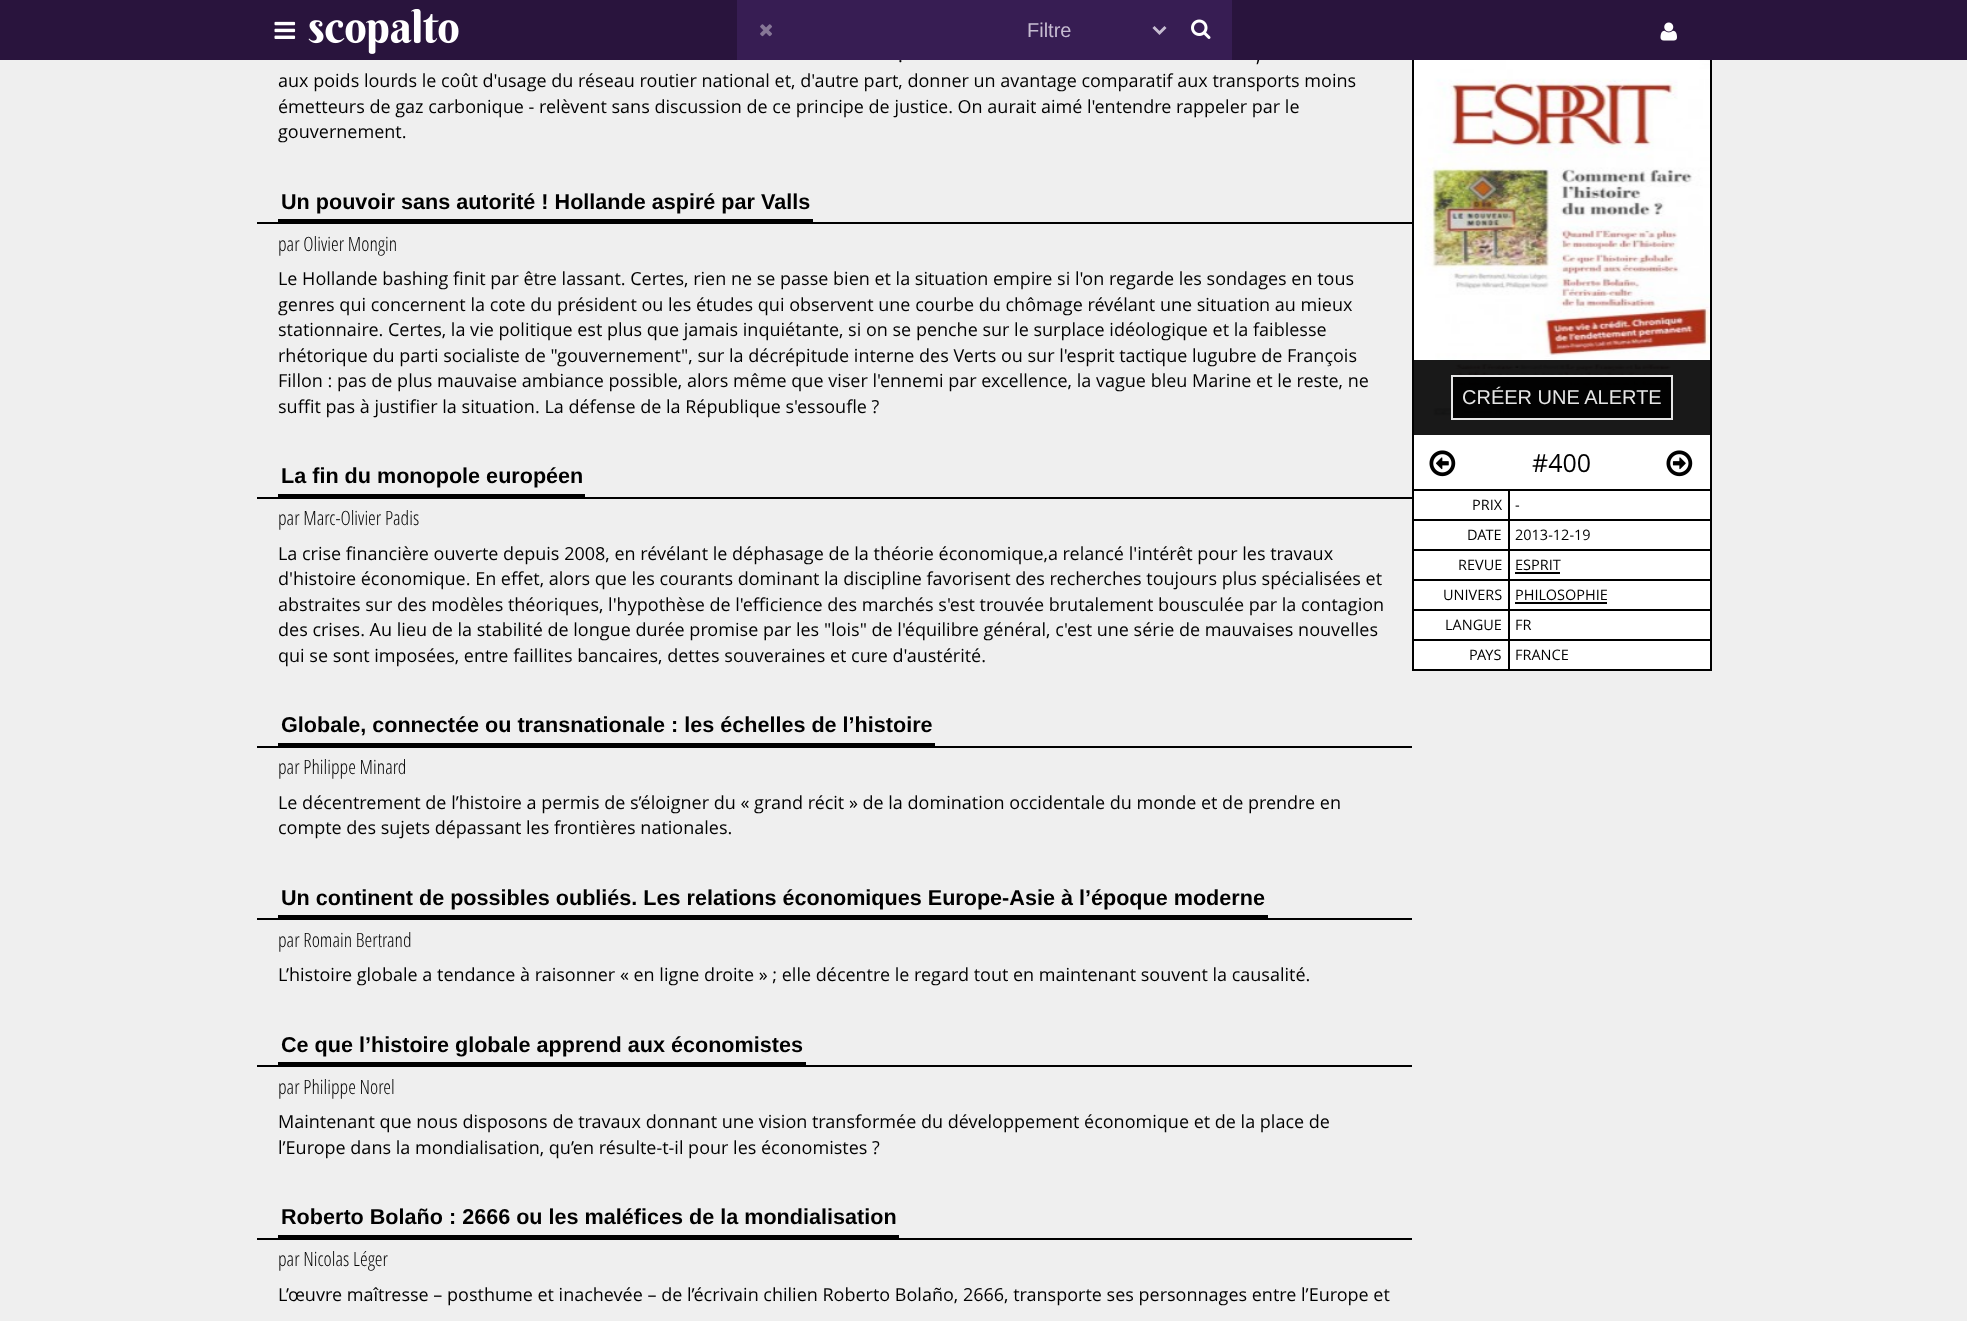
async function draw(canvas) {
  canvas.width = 1967;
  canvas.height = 1321;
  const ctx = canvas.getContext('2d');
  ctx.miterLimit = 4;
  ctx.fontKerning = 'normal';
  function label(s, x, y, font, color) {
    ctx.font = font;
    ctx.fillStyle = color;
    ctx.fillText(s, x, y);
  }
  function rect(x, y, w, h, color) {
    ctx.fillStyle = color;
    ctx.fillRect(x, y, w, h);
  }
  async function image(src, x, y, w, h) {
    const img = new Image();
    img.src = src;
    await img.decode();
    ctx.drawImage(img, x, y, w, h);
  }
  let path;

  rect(0, 0, 1967, 1321, '#efefef');
  label('.', 898, 62, '18px Open Sans', '#000');
  label(',', 1256, 62, '18px Open Sans', '#000');
  rect(0, 0, 1967, 60, '#29143d');
  await image('assets/img1.png', 274, 21, 22, 18);
  await image('assets/img2.png', 308, 9, 151, 45);
  rect(737, 0, 495, 60, '#371d53');
  await image('assets/img3.png', 760, 24, 12, 13);
  path = new Path2D('M1153.5 27L1159.5 33L1165.5 27');
  ctx.strokeStyle = '#c6bcd1';
  ctx.lineWidth = 3;
  ctx.stroke(path);
  label('Filtre', 1027, 37, '20px Liberation Sans', '#c6bcd1');
  await image('assets/img4.png', 1191, 19, 20, 20);
  await image('assets/img5.png', 1660, 22, 17, 19);
  label('aux poids lourds le coût d\'usage du réseau routier national et, d\'autre part, donner un avantage comparatif aux transports moins', 278, 87, '18px Open Sans', '#000');
  label('émetteurs de gaz carbonique - relèvent sans discussion de ce principe de justice. On aurait aimé l\'entendre rappeler par le', 278, 113, '18px Open Sans', '#000');
  label('gouvernement.', 278, 138, '18px Open Sans', '#000');
  rect(257, 222, 1155, 2, '#000');
  rect(278, 219, 535, 3, '#000');
  label('Un pouvoir sans autorité ! Hollande aspiré par Valls', 281, 209, 'bold 21.6px Liberation Sans', '#000');
  label('par Olivier Mongin', 278, 251, '300 19.75px Open Sans', '#000');
  label('Le Hollande bashing finit par être lassant. Certes, rien ne se passe bien et la situation empire si l\'on regarde les sondages en tous', 278, 285, '18px Open Sans', '#000');
  label('genres qui concernent la cote du président ou les études qui observent une courbe du chômage révélant une situation au mieux', 278, 311, '18px Open Sans', '#000');
  label('stationnaire. Certes, la vie politique est plus que jamais inquiétante, si on se penche sur le surplace idéologique et la faiblesse', 278, 336, '18px Open Sans', '#000');
  label('rhétorique du parti socialiste de "gouvernement", sur la décrépitude interne des Verts ou sur l\'esprit tactique lugubre de François', 278, 362, '18px Open Sans', '#000');
  label('Fillon : pas de plus mauvaise ambiance possible, alors même que viser l\'ennemi par excellence, la vague bleu Marine et le reste, ne', 278, 387, '18px Open Sans', '#000');
  label('suffit pas à justifier la situation. La défense de la République s\'essoufle ?', 278, 413, '18px Open Sans', '#000');
  rect(257, 497, 1155, 2, '#000');
  rect(278, 494, 307, 3, '#000');
  label('La fin du monopole européen', 281, 483, 'bold 21.6px Liberation Sans', '#000');
  label('par Marc-Olivier Padis', 278, 525, '300 19.75px Open Sans', '#000');
  label('La crise financière ouverte depuis 2008, en révélant le déphasage de la théorie économique,a relancé l\'intérêt pour les travaux', 278, 560, '18px Open Sans', '#000');
  label('d\'histoire économique. En effet, alors que les courants dominant la discipline favorisent des recherches toujours plus spécialisées et', 278, 585, '18px Open Sans', '#000');
  label('abstraites sur des modèles théoriques, l\'hypothèse de l\'efficience des marchés s\'est trouvée brutalement bousculée par la contagion', 278, 611, '18px Open Sans', '#000');
  label('des crises. Au lieu de la stabilité de longue durée promise par les "lois" de l\'équilibre général, c\'est une série de mauvaises nouvelles', 278, 636, '18px Open Sans', '#000');
  label('qui se sont imposées, entre faillites bancaires, dettes souveraines et cure d\'austérité.', 278, 662, '18px Open Sans', '#000');
  rect(257, 746, 1155, 2, '#000');
  rect(278, 743, 657, 3, '#000');
  label('Globale, connectée ou transnationale : les échelles de l’histoire', 281, 732, 'bold 21.6px Liberation Sans', '#000');
  label('par Philippe Minard', 278, 774, '300 19.75px Open Sans', '#000');
  label('Le décentrement de l’histoire a permis de s’éloigner du « grand récit » de la domination occidentale du monde et de prendre en', 278, 809, '18px Open Sans', '#000');
  label('compte des sujets dépassant les frontières nationales.', 278, 834, '18px Open Sans', '#000');
  rect(257, 918, 1155, 2, '#000');
  rect(278, 915, 990, 3, '#000');
  label('Un continent de possibles oubliés. Les relations économiques Europe-Asie à l’époque moderne', 281, 905, 'bold 21.6px Liberation Sans', '#000');
  label('par Romain Bertrand', 278, 947, '300 19.75px Open Sans', '#000');
  label('L’histoire globale a tendance à raisonner « en ligne droite » ; elle décentre le regard tout en maintenant souvent la causalité.', 278, 981, '18px Open Sans', '#000');
  rect(257, 1065, 1155, 2, '#000');
  rect(278, 1062, 528, 3, '#000');
  label('Ce que l’histoire globale apprend aux économistes', 281, 1052, 'bold 21.6px Liberation Sans', '#000');
  label('par Philippe Norel', 278, 1094, '300 19.75px Open Sans', '#000');
  label('Maintenant que nous disposons de travaux donnant une vision transformée du développement économique et de la place de', 278, 1128, '18px Open Sans', '#000');
  label('l’Europe dans la mondialisation, qu’en résulte-t-il pour les économistes ?', 278, 1154, '18px Open Sans', '#000');
  rect(257, 1238, 1155, 2, '#000');
  rect(278, 1235, 621, 3, '#000');
  label('Roberto Bolaño : 2666 ou les maléfices de la mondialisation', 281, 1224, 'bold 21.6px Liberation Sans', '#000');
  label('par Nicolas Léger', 278, 1266, '300 19.75px Open Sans', '#000');
  label('L’œuvre maîtresse – posthume et inachevée – de l’écrivain chilien Roberto Bolaño, 2666, transporte ses personnages entre l’Europe et', 278, 1301, '18px Open Sans', '#000');
  await image('assets/img6.png', 1414, 60, 296, 375);
  rect(1414, 360, 296, 75, '#000000e6');
  ctx.beginPath();
  ctx.rect(1452, 376, 220, 43);
  ctx.fill();
  ctx.strokeStyle = '#e6e6e6';
  ctx.lineWidth = 2;
  ctx.stroke();
  label('CRÉER UNE ALERTE', 1462, 404, '20px Liberation Sans', '#e6e6e6');
  rect(1414, 435, 296, 54, '#fff');
  rect(1710, 60, 2, 429, '#000');
  rect(1412, 60, 2, 429, '#000');
  await image('assets/img7.png', 1429, 450, 27, 27);
  label('#400', 1532, 472, '25px Open Sans', '#000');
  await image('assets/img8.png', 1666, 450, 27, 27);
  rect(1414, 491, 94, 28, '#fff');
  rect(1508, 489, 204, 2, '#000');
  rect(1508, 519, 204, 2, '#000');
  rect(1508, 549, 204, 2, '#000');
  rect(1508, 579, 204, 2, '#000');
  rect(1508, 609, 204, 2, '#000');
  rect(1508, 639, 204, 2, '#000');
  rect(1710, 639, 2, 32, '#000');
  rect(1508, 669, 204, 2, '#000');
  rect(1508, 639, 2, 32, '#000');
  rect(1412, 639, 97, 2, '#000');
  rect(1508, 609, 2, 32, '#000');
  rect(1412, 609, 97, 2, '#000');
  rect(1508, 579, 2, 32, '#000');
  rect(1412, 579, 97, 2, '#000');
  rect(1508, 549, 2, 32, '#000');
  rect(1412, 549, 97, 2, '#000');
  rect(1508, 519, 2, 32, '#000');
  rect(1412, 519, 97, 2, '#000');
  rect(1508, 489, 2, 32, '#000');
  rect(1412, 489, 97, 2, '#000');
  rect(1412, 669, 97, 2, '#000');
  rect(1412, 639, 2, 32, '#000');
  rect(1412, 609, 2, 32, '#000');
  rect(1412, 579, 2, 32, '#000');
  rect(1412, 549, 2, 32, '#000');
  rect(1412, 519, 2, 32, '#000');
  rect(1412, 489, 2, 32, '#000');
  label('PRIX', 1472, 510, '14.5px Open Sans', '#000');
  rect(1510, 491, 200, 28, '#fff');
  rect(1710, 609, 2, 32, '#000');
  rect(1710, 579, 2, 32, '#000');
  rect(1710, 549, 2, 32, '#000');
  rect(1710, 519, 2, 32, '#000');
  rect(1710, 489, 2, 32, '#000');
  label('-', 1515, 510, '14.5px Open Sans', '#000');
  rect(1414, 521, 94, 28, '#fff');
  label('DATE', 1467, 540, '14.5px Open Sans', '#000');
  rect(1510, 521, 200, 28, '#fff');
  label('2013-12-19', 1515, 540, '14.5px Open Sans', '#000');
  rect(1414, 551, 94, 28, '#fff');
  label('REVUE', 1458, 570, '14.5px Open Sans', '#000');
  rect(1510, 551, 200, 28, '#fff');
  label('ESPRIT', 1515, 570, '14.5px Open Sans', '#000');
  rect(1515, 572, 45, 2, '#000');
  rect(1414, 581, 94, 28, '#fff');
  label('UNIVERS', 1443, 600, '14.5px Open Sans', '#000');
  rect(1510, 581, 200, 28, '#fff');
  label('PHILOSOPHIE', 1515, 600, '14.5px Open Sans', '#000');
  rect(1515, 602, 92, 2, '#000');
  rect(1414, 611, 94, 28, '#fff');
  label('LANGUE', 1445, 630, '14.5px Open Sans', '#000');
  rect(1510, 611, 200, 28, '#fff');
  label('FR', 1515, 630, '14.5px Open Sans', '#000');
  rect(1414, 641, 94, 28, '#fff');
  label('PAYS', 1469, 660, '14.5px Open Sans', '#000');
  rect(1510, 641, 200, 28, '#fff');
  label('FRANCE', 1515, 660, '14.5px Open Sans', '#000');
}

draw(document.querySelector('canvas'));
